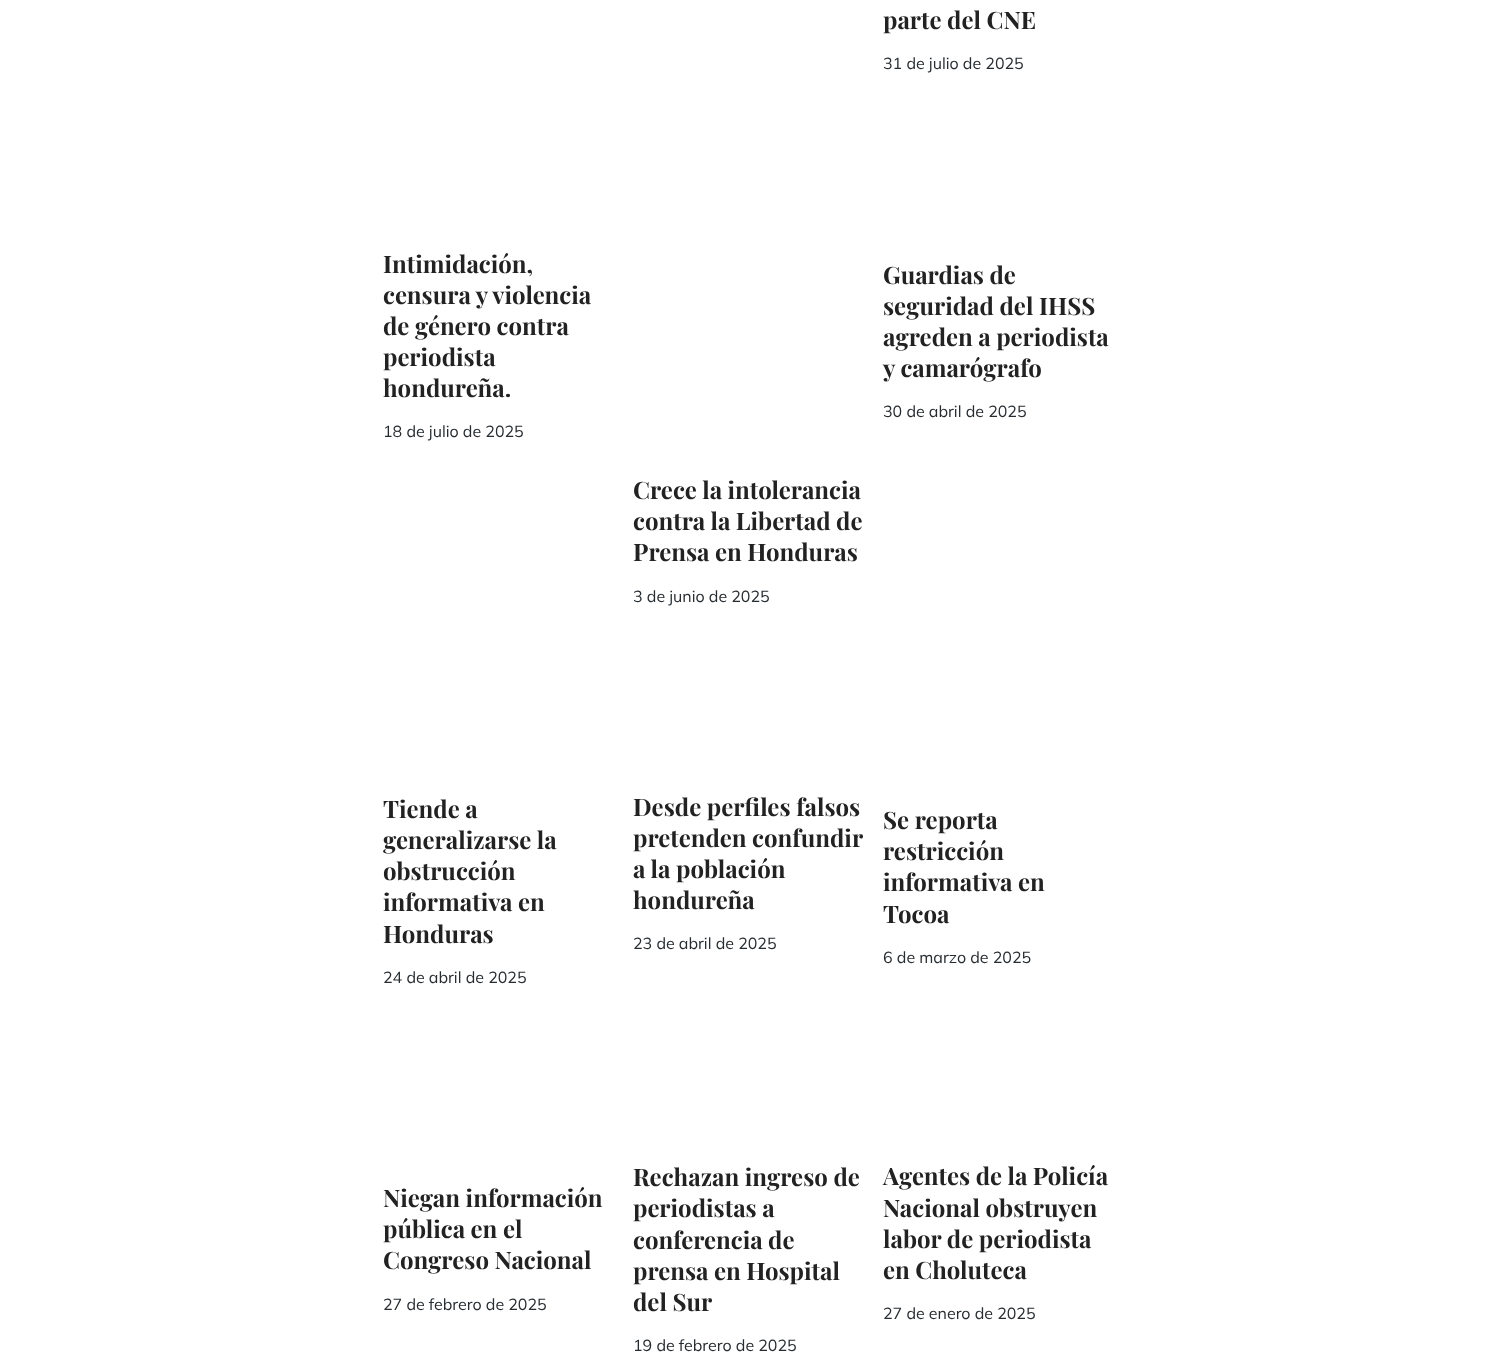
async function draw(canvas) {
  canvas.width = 1495;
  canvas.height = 1372;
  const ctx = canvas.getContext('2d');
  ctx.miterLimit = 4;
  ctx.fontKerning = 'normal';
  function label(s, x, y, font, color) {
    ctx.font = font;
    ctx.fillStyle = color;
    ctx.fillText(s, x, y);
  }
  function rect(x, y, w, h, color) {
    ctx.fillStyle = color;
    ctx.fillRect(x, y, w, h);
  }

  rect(0, 0, 1495, 1372, '#fff');
  label('parte del CNE', 883, 29, 'bold 24px Playfair Display', '#222');
  label('31 de julio de 2025', 883, 69, '16px Mulish', '#272c30');
  label('Intimidación,', 383, 273, 'bold 24px Playfair Display', '#222');
  label('censura y violencia', 383, 304, 'bold 24px Playfair Display', '#222');
  label('de género contra', 383, 335, 'bold 24px Playfair Display', '#222');
  label('periodista', 383, 366, 'bold 24px Playfair Display', '#222');
  label('hondureña.', 383, 397, 'bold 24px Playfair Display', '#222');
  label('18 de julio de 2025', 383, 437, '16px Mulish', '#272c30');
  label('Guardias de', 883, 284, 'bold 24px Playfair Display', '#222');
  label('seguridad del IHSS', 883, 315, 'bold 24px Playfair Display', '#222');
  label('agreden a periodista', 883, 346, 'bold 24px Playfair Display', '#222');
  label('y camarógrafo', 883, 377, 'bold 24px Playfair Display', '#222');
  label('30 de abril de 2025', 883, 417, '16px Mulish', '#272c30');
  label('Crece la intolerancia', 633, 499, 'bold 24px Playfair Display', '#222');
  label('contra la Libertad de', 633, 530, 'bold 24px Playfair Display', '#222');
  label('Prensa en Honduras', 633, 561, 'bold 24px Playfair Display', '#222');
  label('3 de junio de 2025', 633, 602, '16px Mulish', '#272c30');
  label('Tiende a', 383, 818, 'bold 24px Playfair Display', '#222');
  label('generalizarse la', 383, 849, 'bold 24px Playfair Display', '#222');
  label('obstrucción', 383, 880, 'bold 24px Playfair Display', '#222');
  label('informativa en', 383, 911, 'bold 24px Playfair Display', '#222');
  label('Honduras', 383, 943, 'bold 24px Playfair Display', '#222');
  label('24 de abril de 2025', 383, 983, '16px Mulish', '#272c30');
  label('Desde perfiles falsos', 633, 816, 'bold 24px Playfair Display', '#222');
  label('pretenden confundir', 633, 847, 'bold 24px Playfair Display', '#222');
  label('a la población', 633, 878, 'bold 24px Playfair Display', '#222');
  label('hondureña', 633, 909, 'bold 24px Playfair Display', '#222');
  label('23 de abril de 2025', 633, 949, '16px Mulish', '#272c30');
  label('Se reporta', 883, 829, 'bold 24px Playfair Display', '#222');
  label('restricción', 883, 860, 'bold 24px Playfair Display', '#222');
  label('informativa en', 883, 891, 'bold 24px Playfair Display', '#222');
  label('Tocoa', 883, 923, 'bold 24px Playfair Display', '#222');
  label('6 de marzo de 2025', 883, 963, '16px Mulish', '#272c30');
  label('Niegan información', 383, 1207, 'bold 24px Playfair Display', '#222');
  label('pública en el', 383, 1238, 'bold 24px Playfair Display', '#222');
  label('Congreso Nacional', 383, 1269, 'bold 24px Playfair Display', '#222');
  label('27 de febrero de 2025', 383, 1310, '16px Mulish', '#272c30');
  label('Rechazan ingreso de', 633, 1186, 'bold 24px Playfair Display', '#222');
  label('periodistas a', 633, 1217, 'bold 24px Playfair Display', '#222');
  label('conferencia de', 633, 1249, 'bold 24px Playfair Display', '#222');
  label('prensa en Hospital', 633, 1280, 'bold 24px Playfair Display', '#222');
  label('del Sur', 633, 1311, 'bold 24px Playfair Display', '#222');
  label('19 de febrero de 2025', 633, 1351, '16px Mulish', '#272c30');
  label('Agentes de la Policía', 883, 1185, 'bold 24px Playfair Display', '#222');
  label('Nacional obstruyen', 883, 1217, 'bold 24px Playfair Display', '#222');
  label('labor de periodista', 883, 1248, 'bold 24px Playfair Display', '#222');
  label('en Choluteca', 883, 1279, 'bold 24px Playfair Display', '#222');
  label('27 de enero de 2025', 883, 1319, '16px Mulish', '#272c30');
}

draw(document.querySelector('canvas'));
